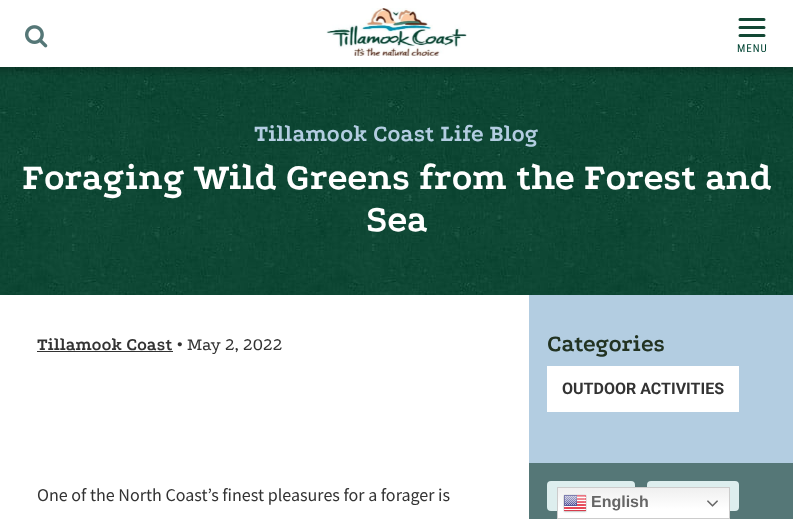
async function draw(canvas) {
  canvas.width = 793;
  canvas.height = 519;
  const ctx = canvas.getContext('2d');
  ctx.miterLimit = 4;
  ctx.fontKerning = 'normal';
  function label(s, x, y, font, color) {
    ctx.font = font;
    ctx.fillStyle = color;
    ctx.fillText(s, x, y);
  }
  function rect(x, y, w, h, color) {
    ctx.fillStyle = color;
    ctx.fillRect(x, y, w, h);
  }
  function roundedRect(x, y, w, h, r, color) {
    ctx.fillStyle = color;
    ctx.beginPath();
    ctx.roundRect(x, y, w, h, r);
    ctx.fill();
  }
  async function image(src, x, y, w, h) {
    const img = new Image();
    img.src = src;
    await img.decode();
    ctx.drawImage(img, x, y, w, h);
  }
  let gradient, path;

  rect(0, 0, 793, 519, '#fff');
  await image('assets/img1.png', 25, 25, 23, 23);
  await image('assets/img2.png', 326, 8, 141, 48);
  path = new Path2D('M740 19.5H764M740 27.5H764M740 35.5H764');
  ctx.strokeStyle = '#124734';
  ctx.lineWidth = 3;
  ctx.lineCap = 'round';
  ctx.stroke(path);
  ctx.letterSpacing = '1px';
  label('MENU', 737, 52, '11px Roboto Condensed', '#043');
  await image('assets/img3.png', 0, 67, 793, 228);
  ctx.letterSpacing = '0px';
  label('Tillamook Coast Life Blog', 254, 141, 'bold 24px Podkova', '#b3cde1');
  label('Foraging Wild Greens from the Forest and', 22, 189, 'bold 38px Podkova', '#fff');
  label('Sea', 366, 231, 'bold 38px Podkova', '#fff');
  label('Tillamook Coast', 37, 350, 'bold 18px Podkova', '#333');
  rect(37, 351, 136, 1, '#333');
  label('• May 2, 2022', 177, 350, '18px Podkova', '#333');
  label('One of the North Coast’s finest pleasures for a forager is', 37, 501, '18px Source Sans Pro', '#333');
  rect(529, 295, 264, 168, '#b3cde1');
  label('Categories', 547, 351, 'bold 24px Podkova', '#232');
  rect(547, 366, 192, 46, '#fff');
  label('OUTDOOR ACTIVITIES', 562, 394, 'bold 16px Roboto', '#333');
  rect(529, 463, 264, 56, '#577');
  roundedRect(547, 481, 88, 30, 4, '#dee');
  roundedRect(647, 481, 92, 30, 4, '#dee');
  gradient = ctx.createLinearGradient(644, 487, 644, 519);
  gradient.addColorStop(0, '#efefef');
  gradient.addColorStop(0.7, '#fff');
  ctx.fillStyle = gradient;
  ctx.fillRect(558, 488, 171, 30);
  ctx.strokeStyle = '#ccc';
  ctx.lineWidth = 1;
  ctx.strokeRect(557.5, 487.5, 172, 31);
  await image('assets/img4.png', 563, 494, 24, 19);
  label('English', 591, 507, 'bold 16px Liberation Sans', '#666');
  await image('assets/img5.png', 707, 500, 11, 7);
}

draw(document.querySelector('canvas'));
